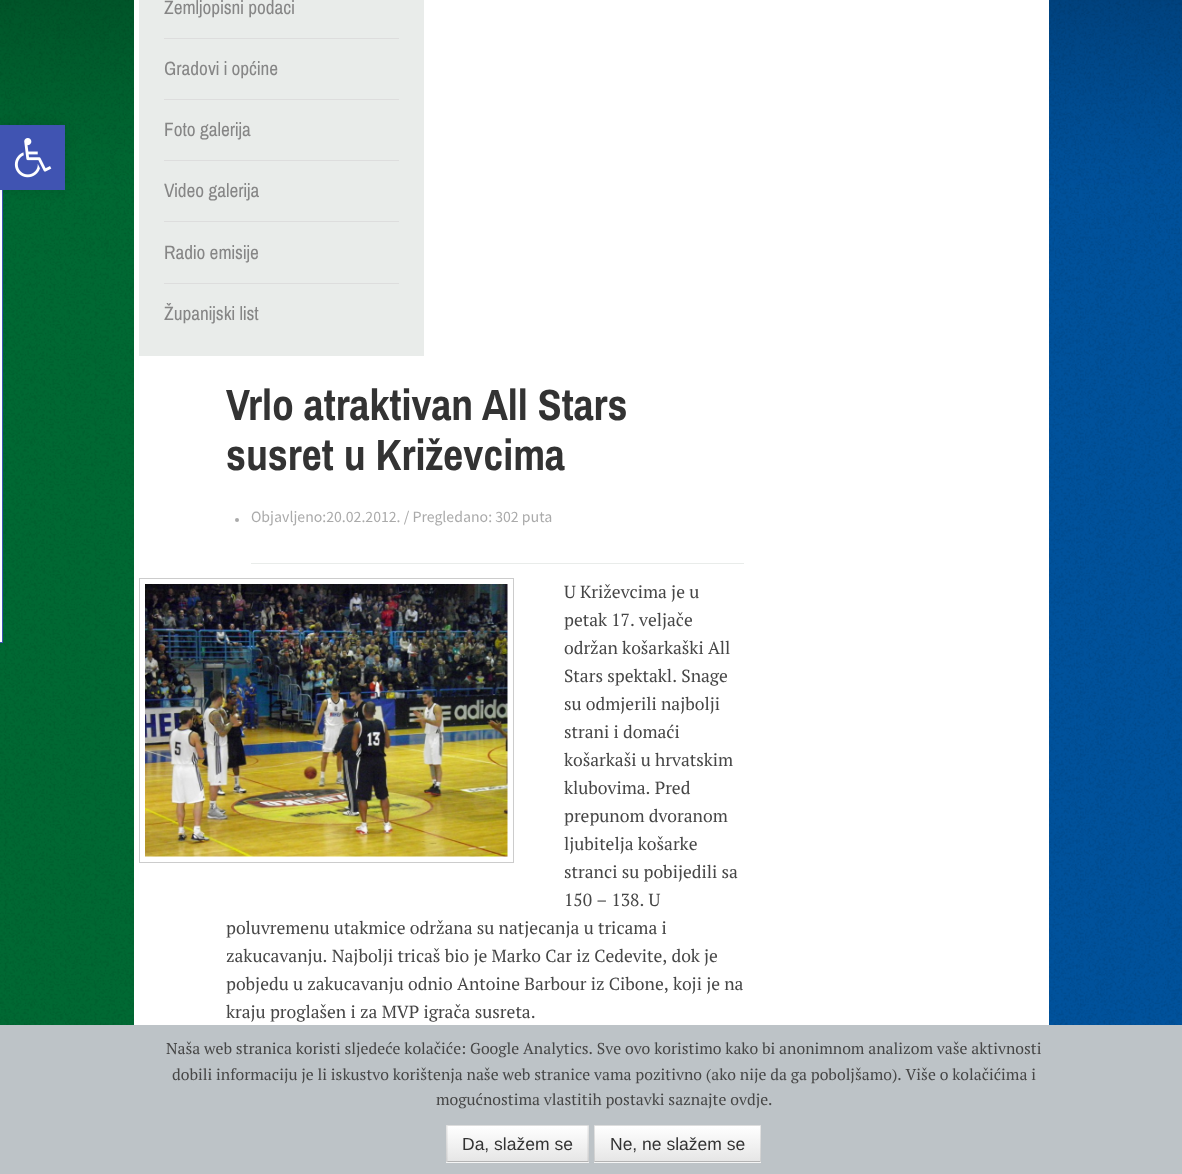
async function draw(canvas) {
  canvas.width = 1182;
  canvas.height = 1174;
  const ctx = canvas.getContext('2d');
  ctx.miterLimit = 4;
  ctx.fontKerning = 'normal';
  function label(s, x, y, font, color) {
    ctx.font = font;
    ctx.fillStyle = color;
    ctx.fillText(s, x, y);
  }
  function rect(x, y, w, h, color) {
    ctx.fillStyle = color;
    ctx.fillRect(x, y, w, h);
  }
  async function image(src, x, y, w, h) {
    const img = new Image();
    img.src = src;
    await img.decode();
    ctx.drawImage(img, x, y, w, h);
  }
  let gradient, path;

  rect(0, 0, 1182, 1174, '#fff');
  await image('assets/img1.png', 0, 259, 1182, 766);
  await image('assets/img2.png', 0, 0, 1182, 259);
  rect(0, 190, 2, 453, '#fff');
  ctx.strokeStyle = '#4054b2';
  ctx.strokeRect(-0.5, 125.5, 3, 517);
  ctx.fillStyle = '#0000001a';
  ctx.filter = 'blur(6px)';
  ctx.beginPath();
  ctx.rect(0, 125, 65, 65);
  ctx.fill();
  ctx.filter = 'none';
  rect(0, 125, 65, 65, '#4054b2');
  await image('assets/img3.png', 14, 138, 38, 40);
  rect(134, 0, 915, 1025, '#fff');
  rect(139, 0, 285, 356, '#e9ecea');
  rect(164, 38, 235, 1, '#ddd');
  label('Zemljopisni podaci', 164, 14, '19.25px Archivo Narrow', '#868686');
  rect(164, 99, 235, 1, '#ddd');
  label('Gradovi i općine', 164, 75, '19.25px Archivo Narrow', '#868686');
  rect(164, 160, 235, 1, '#ddd');
  label('Foto galerija', 164, 136, '19.25px Archivo Narrow', '#868686');
  rect(164, 221, 235, 1, '#ddd');
  label('Video galerija', 164, 197, '19.25px Archivo Narrow', '#868686');
  rect(164, 283, 235, 1, '#ddd');
  label('Radio emisije', 164, 259, '19.25px Archivo Narrow', '#868686');
  label('Županijski list', 164, 320, '19.25px Archivo Narrow', '#868686');
  label('Vrlo atraktivan All Stars', 226, 420, 'bold 43.75px Archivo Narrow', '#333');
  label('susret u Križevcima', 226, 470, 'bold 43.75px Archivo Narrow', '#333');
  rect(251, 563, 493, 1, '#e9ecea');
  ctx.fillStyle = '#aaa';
  ctx.beginPath();
  ctx.arc(237, 520, 2, 0, 2 * Math.PI);
  ctx.fill();
  label('Objavljeno:20.02.2012. / Pregledano: 302 puta', 251, 522, '15.75px Source Sans Pro', '#aaa');
  ctx.strokeStyle = '#ccc';
  ctx.strokeRect(139.5, 578.5, 374, 284);
  await image('assets/img4.png', 145, 584, 363, 273);
  label('U Križevcima je u', 564, 598, '17.5px PT Serif', '#464646');
  label('petak 17. veljače', 564, 626, '17.5px PT Serif', '#464646');
  label('održan košarkaški All', 564, 654, '17.5px PT Serif', '#464646');
  label('Stars spektakl. Snage', 564, 682, '17.5px PT Serif', '#464646');
  label('su odmjerili najbolji', 564, 710, '17.5px PT Serif', '#464646');
  label('strani i domaći', 564, 738, '17.5px PT Serif', '#464646');
  label('košarkaši u hrvatskim', 564, 766, '17.5px PT Serif', '#464646');
  label('klubovima. Pred', 564, 794, '17.5px PT Serif', '#464646');
  label('prepunom dvoranom', 564, 822, '17.5px PT Serif', '#464646');
  label('ljubitelja košarke', 564, 850, '17.5px PT Serif', '#464646');
  label('stranci su pobijedili sa', 564, 878, '17.5px PT Serif', '#464646');
  label('150 – 138. U', 564, 906, '17.5px PT Serif', '#464646');
  label('poluvremenu utakmice održana su natjecanja u tricama i', 226, 934, '17.5px PT Serif', '#464646');
  label('zakucavanju. Najbolji tricaš bio je Marko Car iz Cedevite, dok je', 226, 962, '17.5px PT Serif', '#464646');
  label('pobjedu u zakucavanju odnio Antoine Barbour iz Cibone, koji je na', 226, 990, '17.5px PT Serif', '#464646');
  label('kraju proglašen i za MVP igrača susreta.', 226, 1018, '17.5px PT Serif', '#464646');
  rect(0, 1025, 1182, 149, '#bdc3c7');
  label('Naša web stranica koristi sljedeće kolačiće: Google Analytics. Sve ovo koristimo kako bi anonimnom analizom vaše aktivnosti', 166, 1054, '15.75px PT Serif', '#464646');
  label('dobili informaciju je li iskustvo korištenja naše web stranice vama pozitivno (ako nije da ga poboljšamo). Više o kolačićima i', 172, 1080, '15.75px PT Serif', '#464646');
  label('mogućnostima vlastitih postavki saznajte ovdje.', 436, 1105, '15.75px PT Serif', '#464646');
  rect(446, 1125, 143, 38, '#f5f5f5');
  gradient = ctx.createLinearGradient(518, 1126, 518, 1161);
  gradient.addColorStop(0, '#fff');
  gradient.addColorStop(1, '#e6e6e6');
  ctx.fillStyle = gradient;
  ctx.fillRect(446, 1126, 143, 35);
  ctx.fillStyle = '#ddd';
  path = new Path2D('M446 1125H589L588 1126H448Z');
  ctx.fill(path);
  ctx.fillStyle = '#0000001a';
  path = new Path2D('M589 1125V1162.5L587.5 1161V1126Z');
  ctx.fill(path);
  ctx.fillStyle = '#b3b3b3';
  path = new Path2D('M589 1162H446L448 1161H588Z');
  ctx.fill(path);
  ctx.fillStyle = '#0000001a';
  path = new Path2D('M446 1162.5V1125L447.5 1126V1161Z');
  ctx.fill(path);
  label('Da, slažem se', 462, 1150, '17.5px Liberation Sans', '#333');
  rect(594, 1125, 167, 38, '#f5f5f5');
  gradient = ctx.createLinearGradient(678, 1126, 678, 1161);
  gradient.addColorStop(0, '#fff');
  gradient.addColorStop(1, '#e6e6e6');
  ctx.fillStyle = gradient;
  ctx.fillRect(594, 1126, 167, 35);
  ctx.fillStyle = '#ddd';
  path = new Path2D('M594 1125H761L760 1126H595Z');
  ctx.fill(path);
  ctx.fillStyle = '#0000001a';
  path = new Path2D('M761 1125V1162.5L760 1161V1126Z');
  ctx.fill(path);
  ctx.fillStyle = '#b3b3b3';
  path = new Path2D('M761 1162H594L595 1161H760Z');
  ctx.fill(path);
  ctx.fillStyle = '#0000001a';
  path = new Path2D('M594 1162.5V1125L595 1126V1161Z');
  ctx.fill(path);
  label('Ne, ne slažem se', 610, 1150, '17.5px Liberation Sans', '#333');
}

draw(document.querySelector('canvas'));
